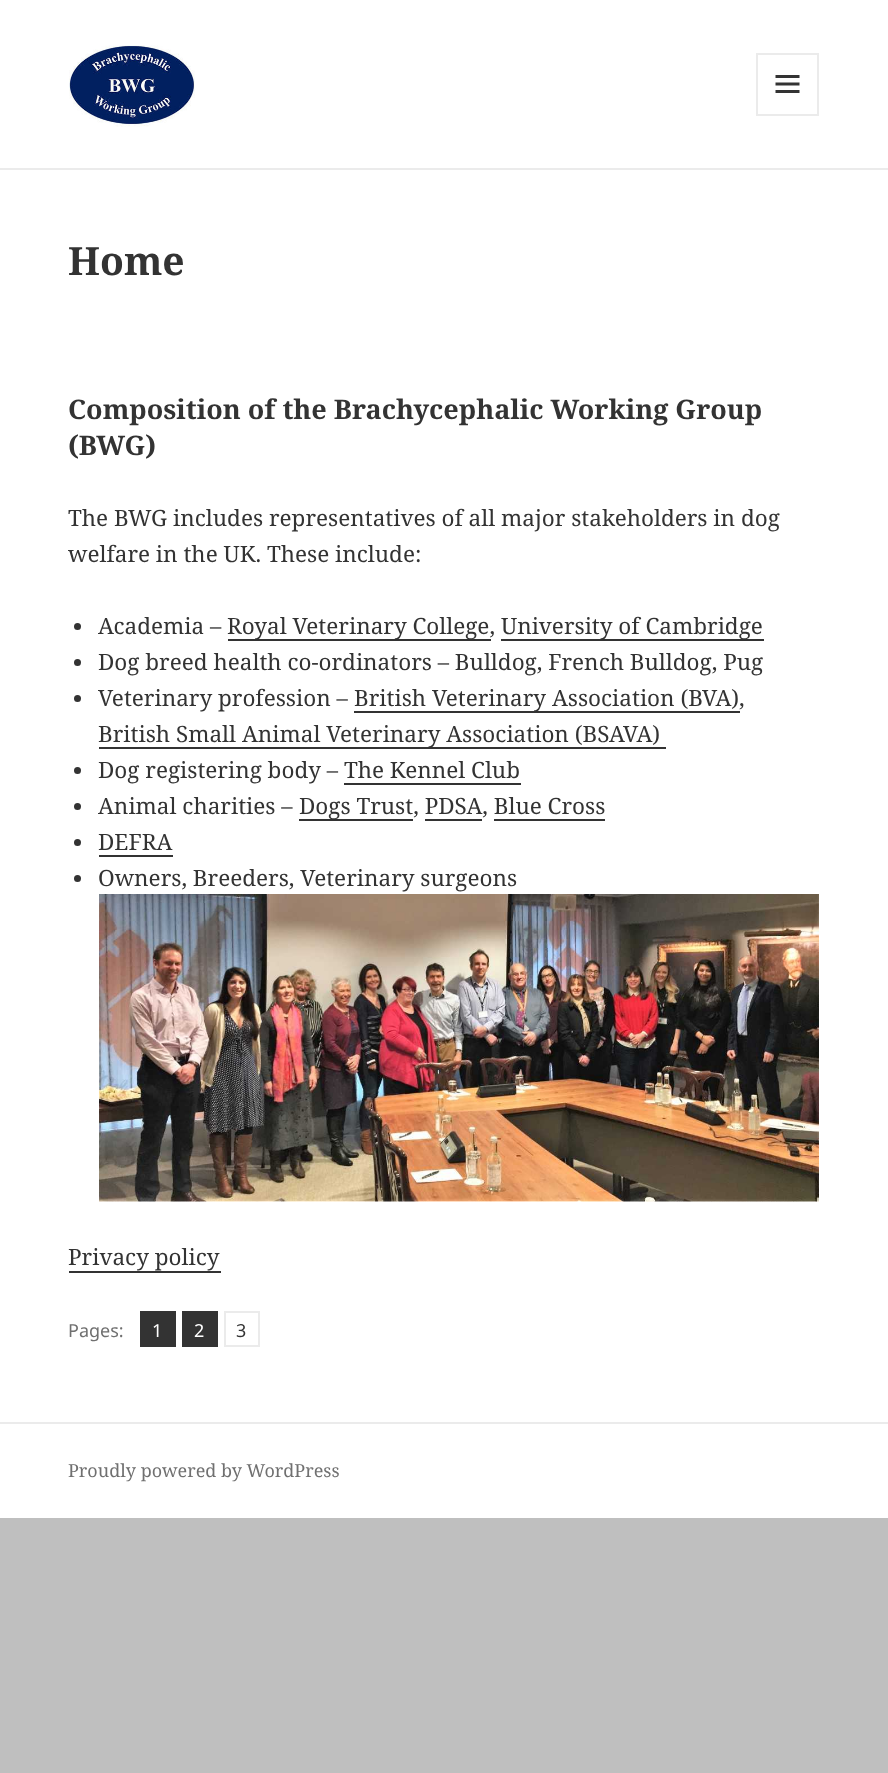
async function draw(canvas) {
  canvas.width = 888;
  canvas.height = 1773;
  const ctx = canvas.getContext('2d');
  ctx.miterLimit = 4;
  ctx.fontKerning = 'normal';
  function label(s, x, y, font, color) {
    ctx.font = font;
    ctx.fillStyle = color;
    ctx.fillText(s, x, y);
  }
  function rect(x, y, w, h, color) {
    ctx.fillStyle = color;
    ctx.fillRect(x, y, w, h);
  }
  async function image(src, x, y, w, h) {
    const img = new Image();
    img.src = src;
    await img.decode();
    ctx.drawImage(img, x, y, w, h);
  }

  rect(0, 0, 888, 1773, '#bfbfbf');
  rect(0, 0, 888, 168, '#fff');
  rect(0, 168, 888, 2, '#ebebeb');
  await image('assets/img1.png', 69, 45, 126, 82);
  ctx.strokeStyle = '#ebebeb';
  ctx.lineWidth = 2;
  ctx.strokeRect(757, 54, 61, 61);
  await image('assets/img2.png', 775, 75, 25, 18);
  rect(0, 170, 888, 1252, '#fff');
  label('Home', 68, 275, 'bold 39px Noto Serif', '#333');
  label('Composition of the Brachycephalic Working Group', 68, 419, 'bold 27px Noto Serif', '#333');
  label('(BWG)', 68, 455, 'bold 27px Noto Serif', '#333');
  label('The BWG includes representatives of all major stakeholders in dog', 68, 526, '22.5px Noto Serif', '#333');
  label('welfare in the UK. These include:', 68, 562, '22.5px Noto Serif', '#333');
  ctx.beginPath();
  ctx.arc(77.5, 626.5, 3.5, 0, 2 * Math.PI);
  ctx.fill();
  label('Academia –', 98, 634, '22.5px Noto Serif', '#333');
  rect(228, 639, 263, 2, '#333');
  label('Royal Veterinary College,', 227, 634, '22.5px Noto Serif', '#333');
  rect(501, 639, 263, 2, '#333');
  label('University of Cambridge', 501, 634, '22.5px Noto Serif', '#333');
  ctx.beginPath();
  ctx.arc(77.5, 662.5, 3.5, 0, 2 * Math.PI);
  ctx.fill();
  label('Dog breed health co-ordinators – Bulldog, French Bulldog, Pug', 98, 670, '22.5px Noto Serif', '#333');
  ctx.beginPath();
  ctx.arc(77.5, 698.5, 3.5, 0, 2 * Math.PI);
  ctx.fill();
  label('Veterinary profession –', 98, 706, '22.5px Noto Serif', '#333');
  rect(354, 711, 386, 2, '#333');
  label('British Veterinary Association (BVA),', 354, 706, '22.5px Noto Serif', '#333');
  rect(99, 747, 567, 2, '#333');
  label('British Small Animal Veterinary Association (BSAVA)', 98, 742, '22.5px Noto Serif', '#333');
  ctx.beginPath();
  ctx.arc(77.5, 770.5, 3.5, 0, 2 * Math.PI);
  ctx.fill();
  label('Dog registering body – The Kennel Club', 98, 778, '22.5px Noto Serif', '#333');
  rect(344, 783, 177, 2, '#333');
  ctx.beginPath();
  ctx.arc(77.5, 806.5, 3.5, 0, 2 * Math.PI);
  ctx.fill();
  label('Animal charities –', 98, 814, '22.5px Noto Serif', '#333');
  rect(299, 819, 114, 2, '#333');
  label('Dogs Trust, PDSA, Blue Cross', 299, 814, '22.5px Noto Serif', '#333');
  rect(425, 819, 57, 2, '#333');
  rect(494, 819, 111, 2, '#333');
  ctx.beginPath();
  ctx.arc(77.5, 842.5, 3.5, 0, 2 * Math.PI);
  ctx.fill();
  label('DEFRA', 98, 850, '22.5px Noto Serif', '#333');
  rect(99, 855, 74, 2, '#333');
  ctx.beginPath();
  ctx.arc(77.5, 878.5, 3.5, 0, 2 * Math.PI);
  ctx.fill();
  label('Owners, Breeders, Veterinary surgeons', 98, 886, '22.5px Noto Serif', '#333');
  await image('assets/img3.png', 99, 894, 720, 308);
  label('Privacy policy', 68, 1265, '22.5px Noto Serif', '#333');
  rect(69, 1271, 152, 2, '#333');
  label('Pages:', 68, 1337, '18px Noto Sans', '#707070');
  rect(140, 1311, 36, 36, '#333');
  label('1', 152, 1337, '18px Noto Sans', '#fff');
  rect(182, 1311, 36, 36, '#333');
  label('2', 194, 1337, '18px Noto Sans', '#fff');
  ctx.strokeRect(225, 1312, 34, 34);
  label('3', 236, 1337, '18px Noto Sans', '#333');
  rect(0, 1424, 888, 94, '#fff');
  rect(0, 1422, 888, 2, '#ebebeb');
  label('Proudly powered by WordPress', 68, 1477, '18px Noto Serif', '#707070');
}

draw(document.querySelector('canvas'));
